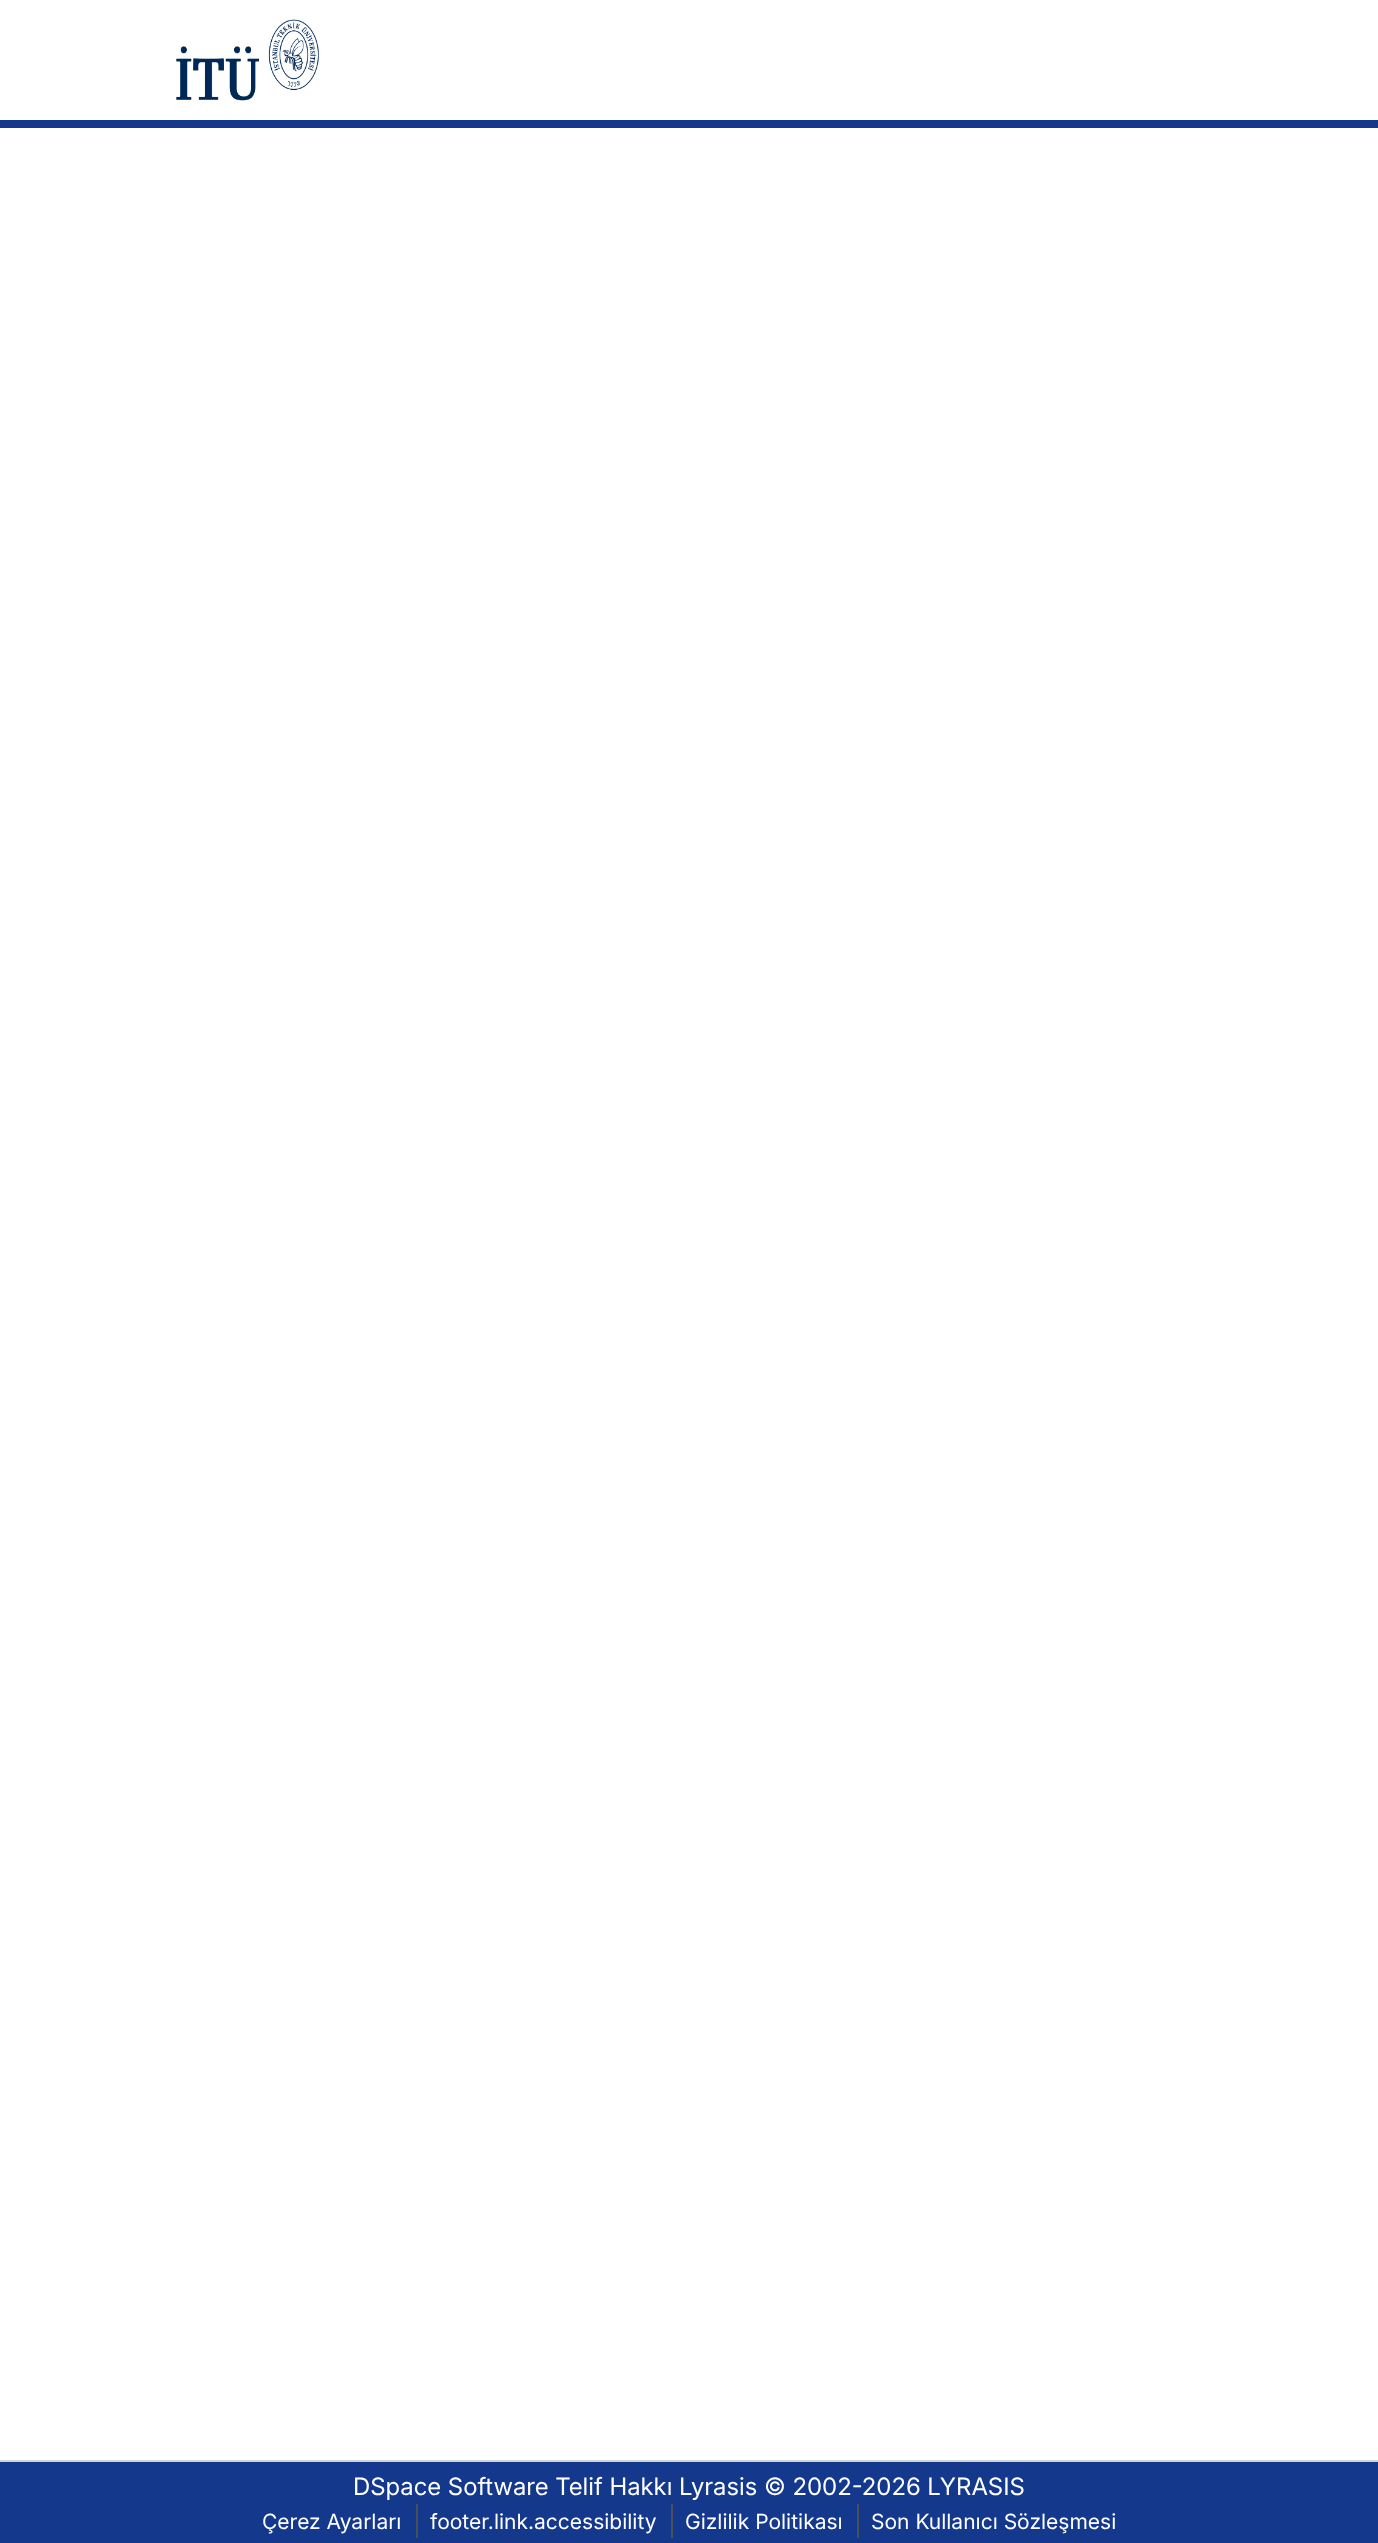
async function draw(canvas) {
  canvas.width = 1378;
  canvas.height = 2543;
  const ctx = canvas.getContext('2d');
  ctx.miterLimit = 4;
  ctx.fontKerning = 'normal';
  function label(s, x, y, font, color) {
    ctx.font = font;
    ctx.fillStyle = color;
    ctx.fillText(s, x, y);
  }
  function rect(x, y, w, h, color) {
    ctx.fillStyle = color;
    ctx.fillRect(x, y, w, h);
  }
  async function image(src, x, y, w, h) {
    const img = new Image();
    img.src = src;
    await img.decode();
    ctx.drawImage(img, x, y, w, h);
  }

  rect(0, 0, 1378, 2543, '#fff');
  rect(0, 120, 1378, 8, '#13388c');
  await image('assets/img1.png', 176, 19, 143, 82);
  rect(0, 2462, 1378, 81, '#13388c');
  rect(0, 2460, 1378, 2, '#ced4da');
  label('DSpace Software Telif Hakkı Lyrasis © 2002-2026 LYRASIS', 353, 2495, '24px Inter', '#fff');
  label('Çerez Ayarları', 262, 2529, '21px "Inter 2"', '#fff');
  rect(416, 2504, 2, 34, '#495057');
  label('footer.link.accessibility', 430, 2529, '21px "Inter 2"', '#fff');
  rect(671, 2504, 2, 34, '#495057');
  label('Gizlilik Politikası', 685, 2529, '21px "Inter 2"', '#fff');
  rect(857, 2504, 2, 34, '#495057');
  label('Son Kullanıcı Sözleşmesi', 871, 2529, '21px "Inter 2"', '#fff');
}

draw(document.querySelector('canvas'));
